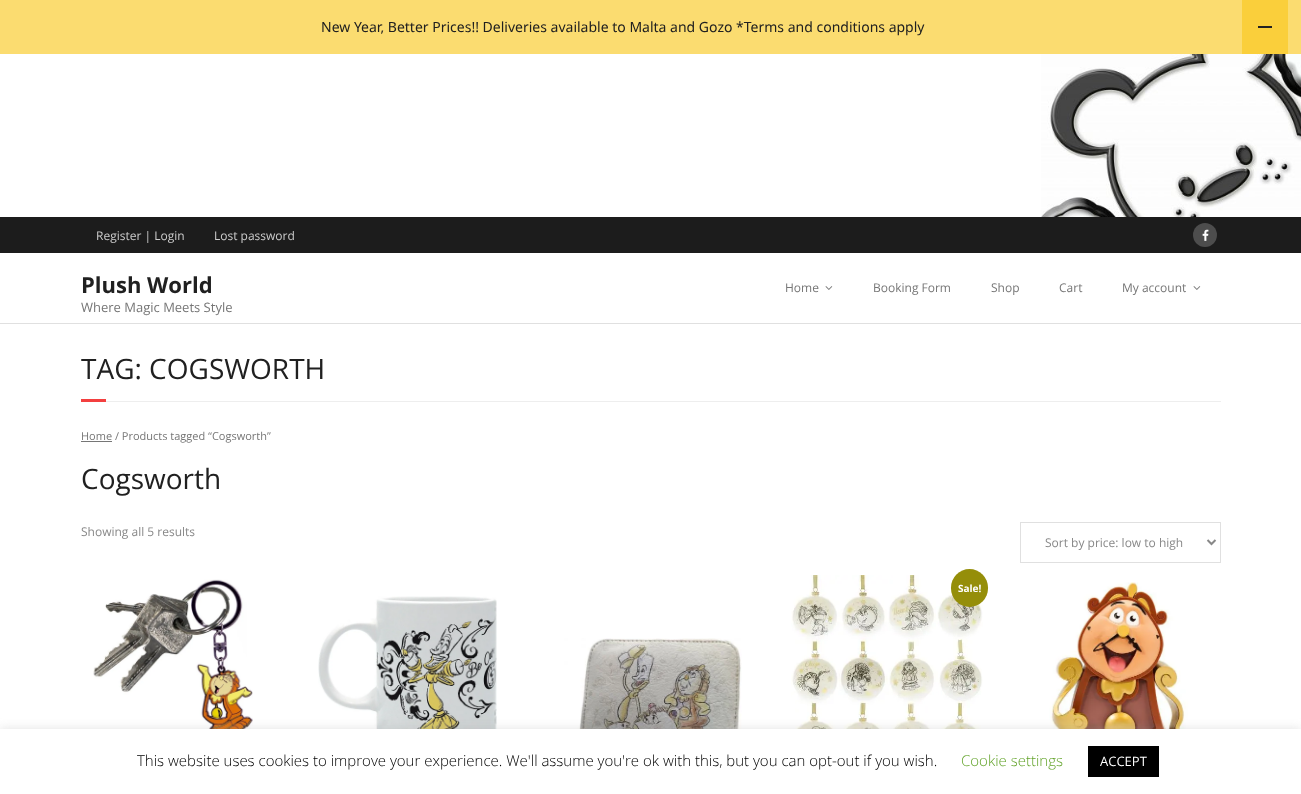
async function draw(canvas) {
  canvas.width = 1301;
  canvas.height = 794;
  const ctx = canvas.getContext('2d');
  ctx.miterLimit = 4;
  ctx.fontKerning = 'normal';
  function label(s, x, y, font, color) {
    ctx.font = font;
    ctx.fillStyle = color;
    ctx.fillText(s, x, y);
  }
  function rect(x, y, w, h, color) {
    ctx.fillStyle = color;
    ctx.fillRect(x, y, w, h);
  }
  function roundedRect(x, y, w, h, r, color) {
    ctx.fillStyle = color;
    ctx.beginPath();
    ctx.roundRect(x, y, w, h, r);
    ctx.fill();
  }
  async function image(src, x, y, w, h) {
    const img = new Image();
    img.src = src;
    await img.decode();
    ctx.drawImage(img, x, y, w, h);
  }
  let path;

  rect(0, 0, 1301, 794, '#fff');
  rect(0, 0, 1301, 54, '#fbdc70');
  label('New Year, Better Prices!! Deliveries available to Malta and Gozo *Terms and conditions apply', 321, 32, '14px Noto Sans', '#202020');
  rect(1242, 0, 46, 54, '#facf3b');
  rect(1258, 26, 14, 2, '#222');
  await image('assets/img1.png', 1041, 54, 260, 163);
  rect(0, 217, 1301, 36, '#1c1c1c');
  label('Register | Login', 96, 240, '12px Open Sans', '#ccc');
  label('Lost password', 214, 240, '12px Open Sans', '#ccc');
  ctx.fillStyle = '#4d4d4d';
  ctx.beginPath();
  ctx.arc(1205, 235, 12, 0, 2 * Math.PI);
  ctx.fill();
  await image('assets/img2.png', 1202, 229, 7, 12);
  rect(0, 323, 1301, 1, '#e0e0e0');
  label('Plush World', 81, 293, 'bold 22px Open Sans', '#202020');
  label('Where Magic Meets Style', 81, 312, '13px Open Sans', '#767676');
  label('Home', 785, 292, '12px Open Sans', '#767676');
  await image('assets/img3.png', 825, 286, 8, 4);
  label('Booking Form', 873, 292, '12px Open Sans', '#767676');
  label('Shop', 991, 292, '12px Open Sans', '#767676');
  label('Cart', 1059, 292, '12px Open Sans', '#767676');
  label('My account', 1122, 292, '12px Open Sans', '#767676');
  await image('assets/img3.png', 1193, 286, 8, 4);
  label('TAG: COGSWORTH', 81, 379, '28px Open Sans', '#202020');
  rect(81, 399, 25, 3, '#f33f3f');
  rect(106, 401, 1115, 1, '#eee');
  rect(81, 441, 31, 1, '#767676');
  label('Home / Products tagged “Cogsworth”', 81, 440, '11px Open Sans', '#767676');
  label('Cogsworth', 81, 489, '28px Open Sans', '#202020');
  label('Showing all 5 results', 81, 536, '12px Open Sans', '#888');
  ctx.strokeStyle = '#e0e0e0';
  ctx.strokeRect(1020.5, 522.5, 200, 40);
  path = new Path2D('M1207.5 540L1211.5 544L1215.5 540');
  ctx.strokeStyle = '#888';
  ctx.lineWidth = 2;
  ctx.stroke(path);
  label('Sort by price: low to high', 1045, 547, '12px Open Sans', '#888');
  await image('assets/img4.png', 93, 579, 160, 150);
  await image('assets/img5.png', 791, 575, 192, 154);
  roundedRect(951, 569, 37, 38, 18.5, '#958e09');
  label('Sale!', 958, 592, 'bold 10px Open Sans', '#fff');
  await image('assets/img6.png', 1027, 582, 193, 147);
  await image('assets/img7.png', 318, 596, 179, 133);
  await image('assets/img8.png', 554, 638, 188, 91);
  ctx.fillStyle = '#acabab4d';
  ctx.filter = 'blur(5px)';
  ctx.beginPath();
  ctx.rect(0, 728, 1301, 65);
  ctx.fill();
  ctx.filter = 'none';
  rect(0, 729, 1301, 65, '#fff');
  label('This website uses cookies to improve your experience. We\'ll assume you\'re ok with this, but you can opt-out if you wish.', 137, 766, '300 15px Open Sans', '#000');
  label('Cookie settings', 961, 766, '300 15px Open Sans', '#62a329');
  rect(1088, 746, 71, 31, '#000');
  label('ACCEPT', 1100, 766, '13px Open Sans', '#fff');
}

draw(document.querySelector('canvas'));
